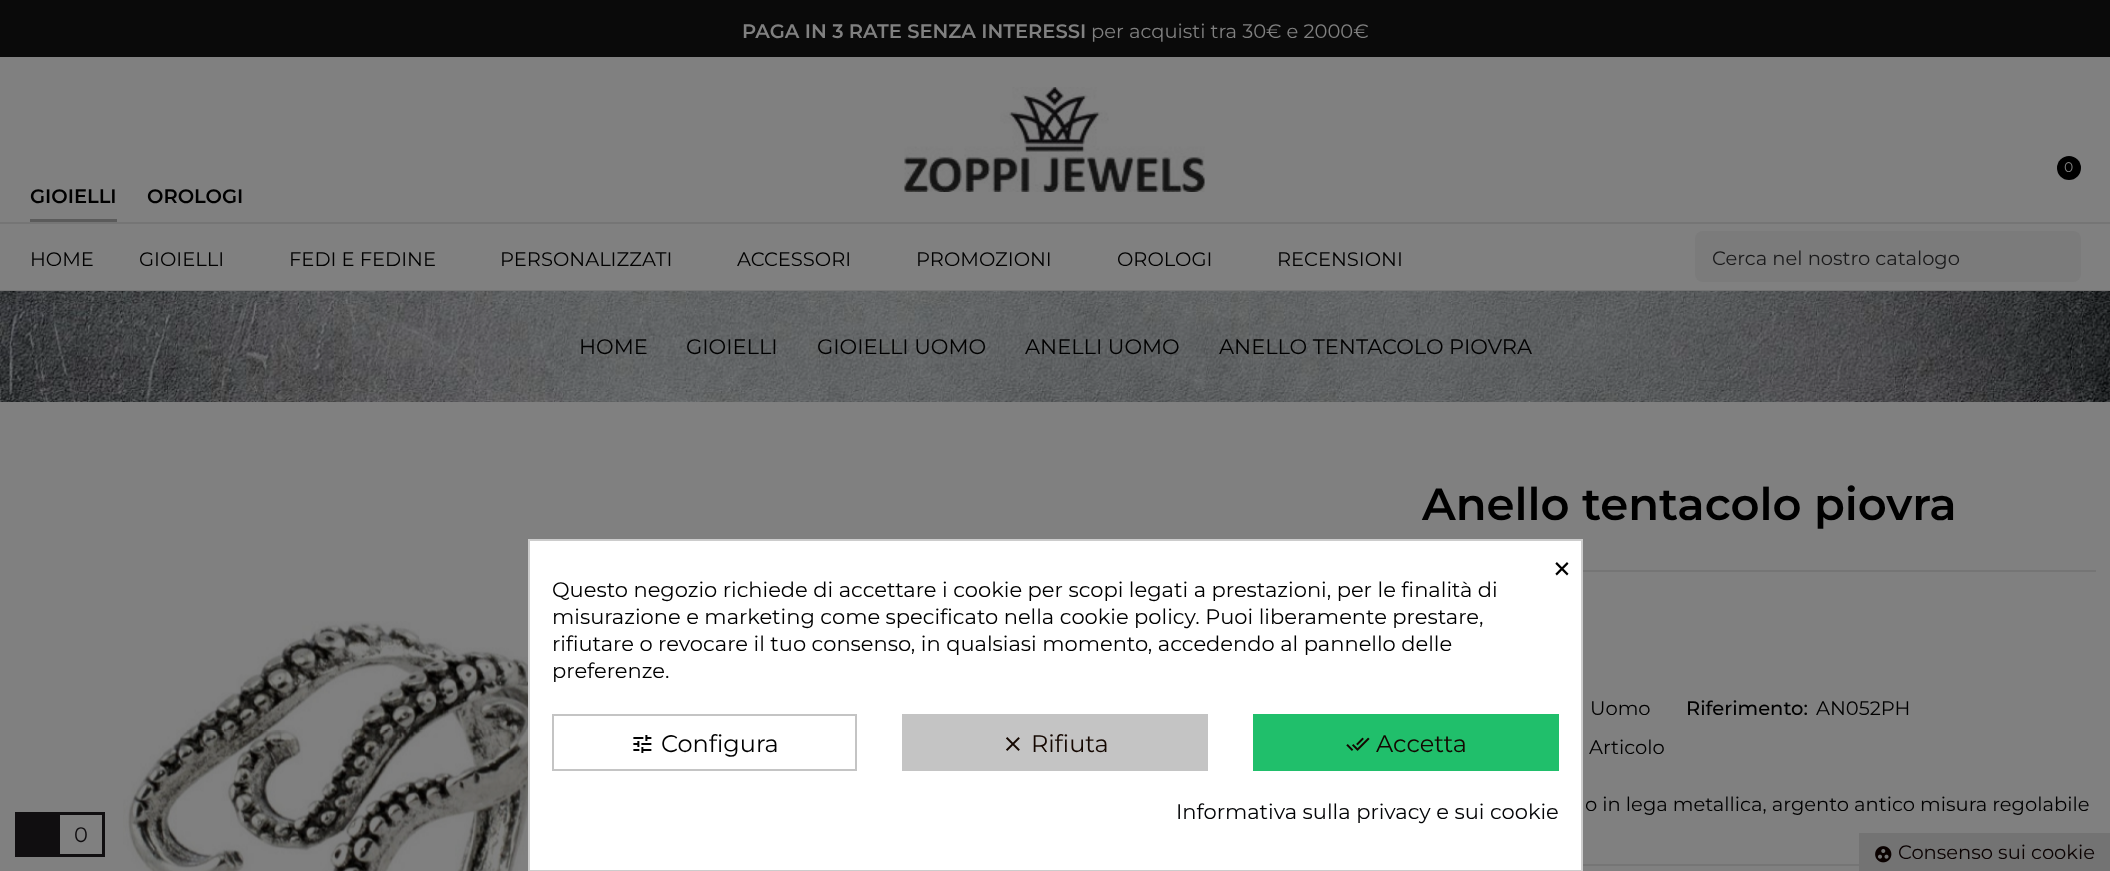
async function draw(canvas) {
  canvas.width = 2110;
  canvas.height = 871;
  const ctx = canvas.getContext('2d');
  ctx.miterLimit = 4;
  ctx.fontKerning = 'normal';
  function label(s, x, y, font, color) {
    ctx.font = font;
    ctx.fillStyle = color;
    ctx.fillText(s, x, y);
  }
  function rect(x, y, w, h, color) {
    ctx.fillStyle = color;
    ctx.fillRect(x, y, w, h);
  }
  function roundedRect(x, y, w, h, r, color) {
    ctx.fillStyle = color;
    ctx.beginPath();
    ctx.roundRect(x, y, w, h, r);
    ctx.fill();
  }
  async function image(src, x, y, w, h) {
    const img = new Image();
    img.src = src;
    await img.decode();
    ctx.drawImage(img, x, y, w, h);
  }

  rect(0, 0, 2110, 871, '#808080');
  rect(0, 0, 2110, 57, '#0a0a0a');
  label('PAGA IN 3 RATE SENZA INTERESSI', 742, 38, '600 19.5px Montserrat', '#808080');
  label('per acquisti tra 30€ e 2000€', 1091, 38, '19.5px Montserrat', '#808080');
  await image('assets/img1.png', 904, 87, 301, 105);
  ctx.fillStyle = '#000';
  ctx.beginPath();
  ctx.arc(2069, 168, 12, 0, 2 * Math.PI);
  ctx.fill();
  label('0', 2064, 172, '14px Montserrat', '#808080');
  label('GIOIELLI', 30, 203, '600 19.5px Montserrat', '#000');
  rect(30, 219, 87, 3, '#5b5b5b');
  label('OROLOGI', 147, 203, '600 19.5px Montserrat', '#000');
  rect(0, 222, 2110, 2, '#757575');
  rect(0, 290, 2110, 1, '#757575');
  label('HOME', 30, 266, '19.5px Montserrat', '#000');
  label('GIOIELLI', 139, 266, '19.5px Montserrat', '#000');
  label('FEDI E FEDINE', 289, 266, '19.5px Montserrat', '#000');
  label('PERSONALIZZATI', 500, 266, '19.5px Montserrat', '#000');
  label('ACCESSORI', 737, 266, '19.5px Montserrat', '#000');
  label('PROMOZIONI', 916, 266, '19.5px Montserrat', '#000');
  label('OROLOGI', 1117, 266, '19.5px Montserrat', '#000');
  label('RECENSIONI', 1277, 266, '19.5px Montserrat', '#000');
  roundedRect(1695, 231, 386, 51, 8, '#7b7b7b');
  label('Cerca nel nostro catalogo', 1712, 265, '19.5px Montserrat', '#1a1a1b');
  await image('assets/img2.png', 0, 291, 2110, 111);
  label('HOME', 579, 354, '21px Montserrat', '#000');
  label('GIOIELLI', 686, 354, '21px Montserrat', '#000');
  label('GIOIELLI UOMO', 817, 354, '21px Montserrat', '#000');
  label('ANELLI UOMO', 1025, 354, '21px Montserrat', '#000');
  label('ANELLO TENTACOLO PIOVRA', 1219, 354, '21px Montserrat', '#000');
  await image('assets/img3.png', 123, 621, 405, 250);
  label('Anello tentacolo piovra', 1422, 520, '600 45px Montserrat', '#000');
  rect(1583, 570, 513, 2, '#757575');
  label('Uomo', 1590, 715, '19.5px Montserrat', '#000');
  label('Riferimento:', 1686, 715, '500 19.5px Montserrat', '#000');
  label('AN052PH', 1816, 715, '19.5px Montserrat', '#000');
  label('Articolo', 1589, 754, '19.5px Montserrat', '#000');
  label('o in lega metallica, argento antico misura regolabile', 1585, 811, '19.5px Montserrat', '#000');
  rect(1583, 864, 276, 2, '#757575');
  ctx.fillStyle = '#fff';
  ctx.beginPath();
  ctx.rect(529, 540, 1053, 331);
  ctx.fill();
  ctx.strokeStyle = '#ccc';
  ctx.lineWidth = 2;
  ctx.stroke();
  label('×', 1551, 582, '38px Montserrat', '#000');
  label('Questo negozio richiede di accettare i cookie per scopi legati a prestazioni, per le finalità di', 552, 597, '21px Montserrat', '#000');
  label('misurazione e marketing come specificato nella cookie policy. Puoi liberamente prestare,', 552, 624, '21px Montserrat', '#000');
  label('rifiutare o revocare il tuo consenso, in qualsiasi momento, accedendo al pannello delle', 552, 651, '21px Montserrat', '#000');
  label('preferenze.', 552, 678, '21px Montserrat', '#000');
  ctx.strokeStyle = '#c4c4c4';
  ctx.strokeRect(553, 715, 303, 55);
  await image('assets/img4.png', 633, 735, 19, 18);
  label('Configura', 661, 752, '24px Montserrat', '#000');
  rect(902, 714, 306, 57, '#c4c4c4');
  await image('assets/img5.png', 1006, 737, 14, 14);
  label('Rifiuta', 1031, 752, '24px Montserrat', '#140700');
  rect(1253, 714, 306, 57, '#20bf6b');
  await image('assets/img6.png', 1346, 737, 24, 14);
  label('Accetta', 1376, 752, '24px Montserrat', '#140700');
  label('Informativa sulla privacy e sui cookie', 1176, 819, '21px Montserrat', '#030406');
  rect(15, 812, 90, 45, '#100e10');
  rect(60, 815, 42, 39, '#808080');
  label('0', 74, 842, '21px Montserrat', '#100e10');
  rect(1859, 833, 251, 38, '#737373');
  await image('assets/img7.png', 1875, 846, 17, 17);
  label('Consenso sui cookie', 1898, 859, '19.5px Montserrat', '#0a0100');
}

draw(document.querySelector('canvas'));
